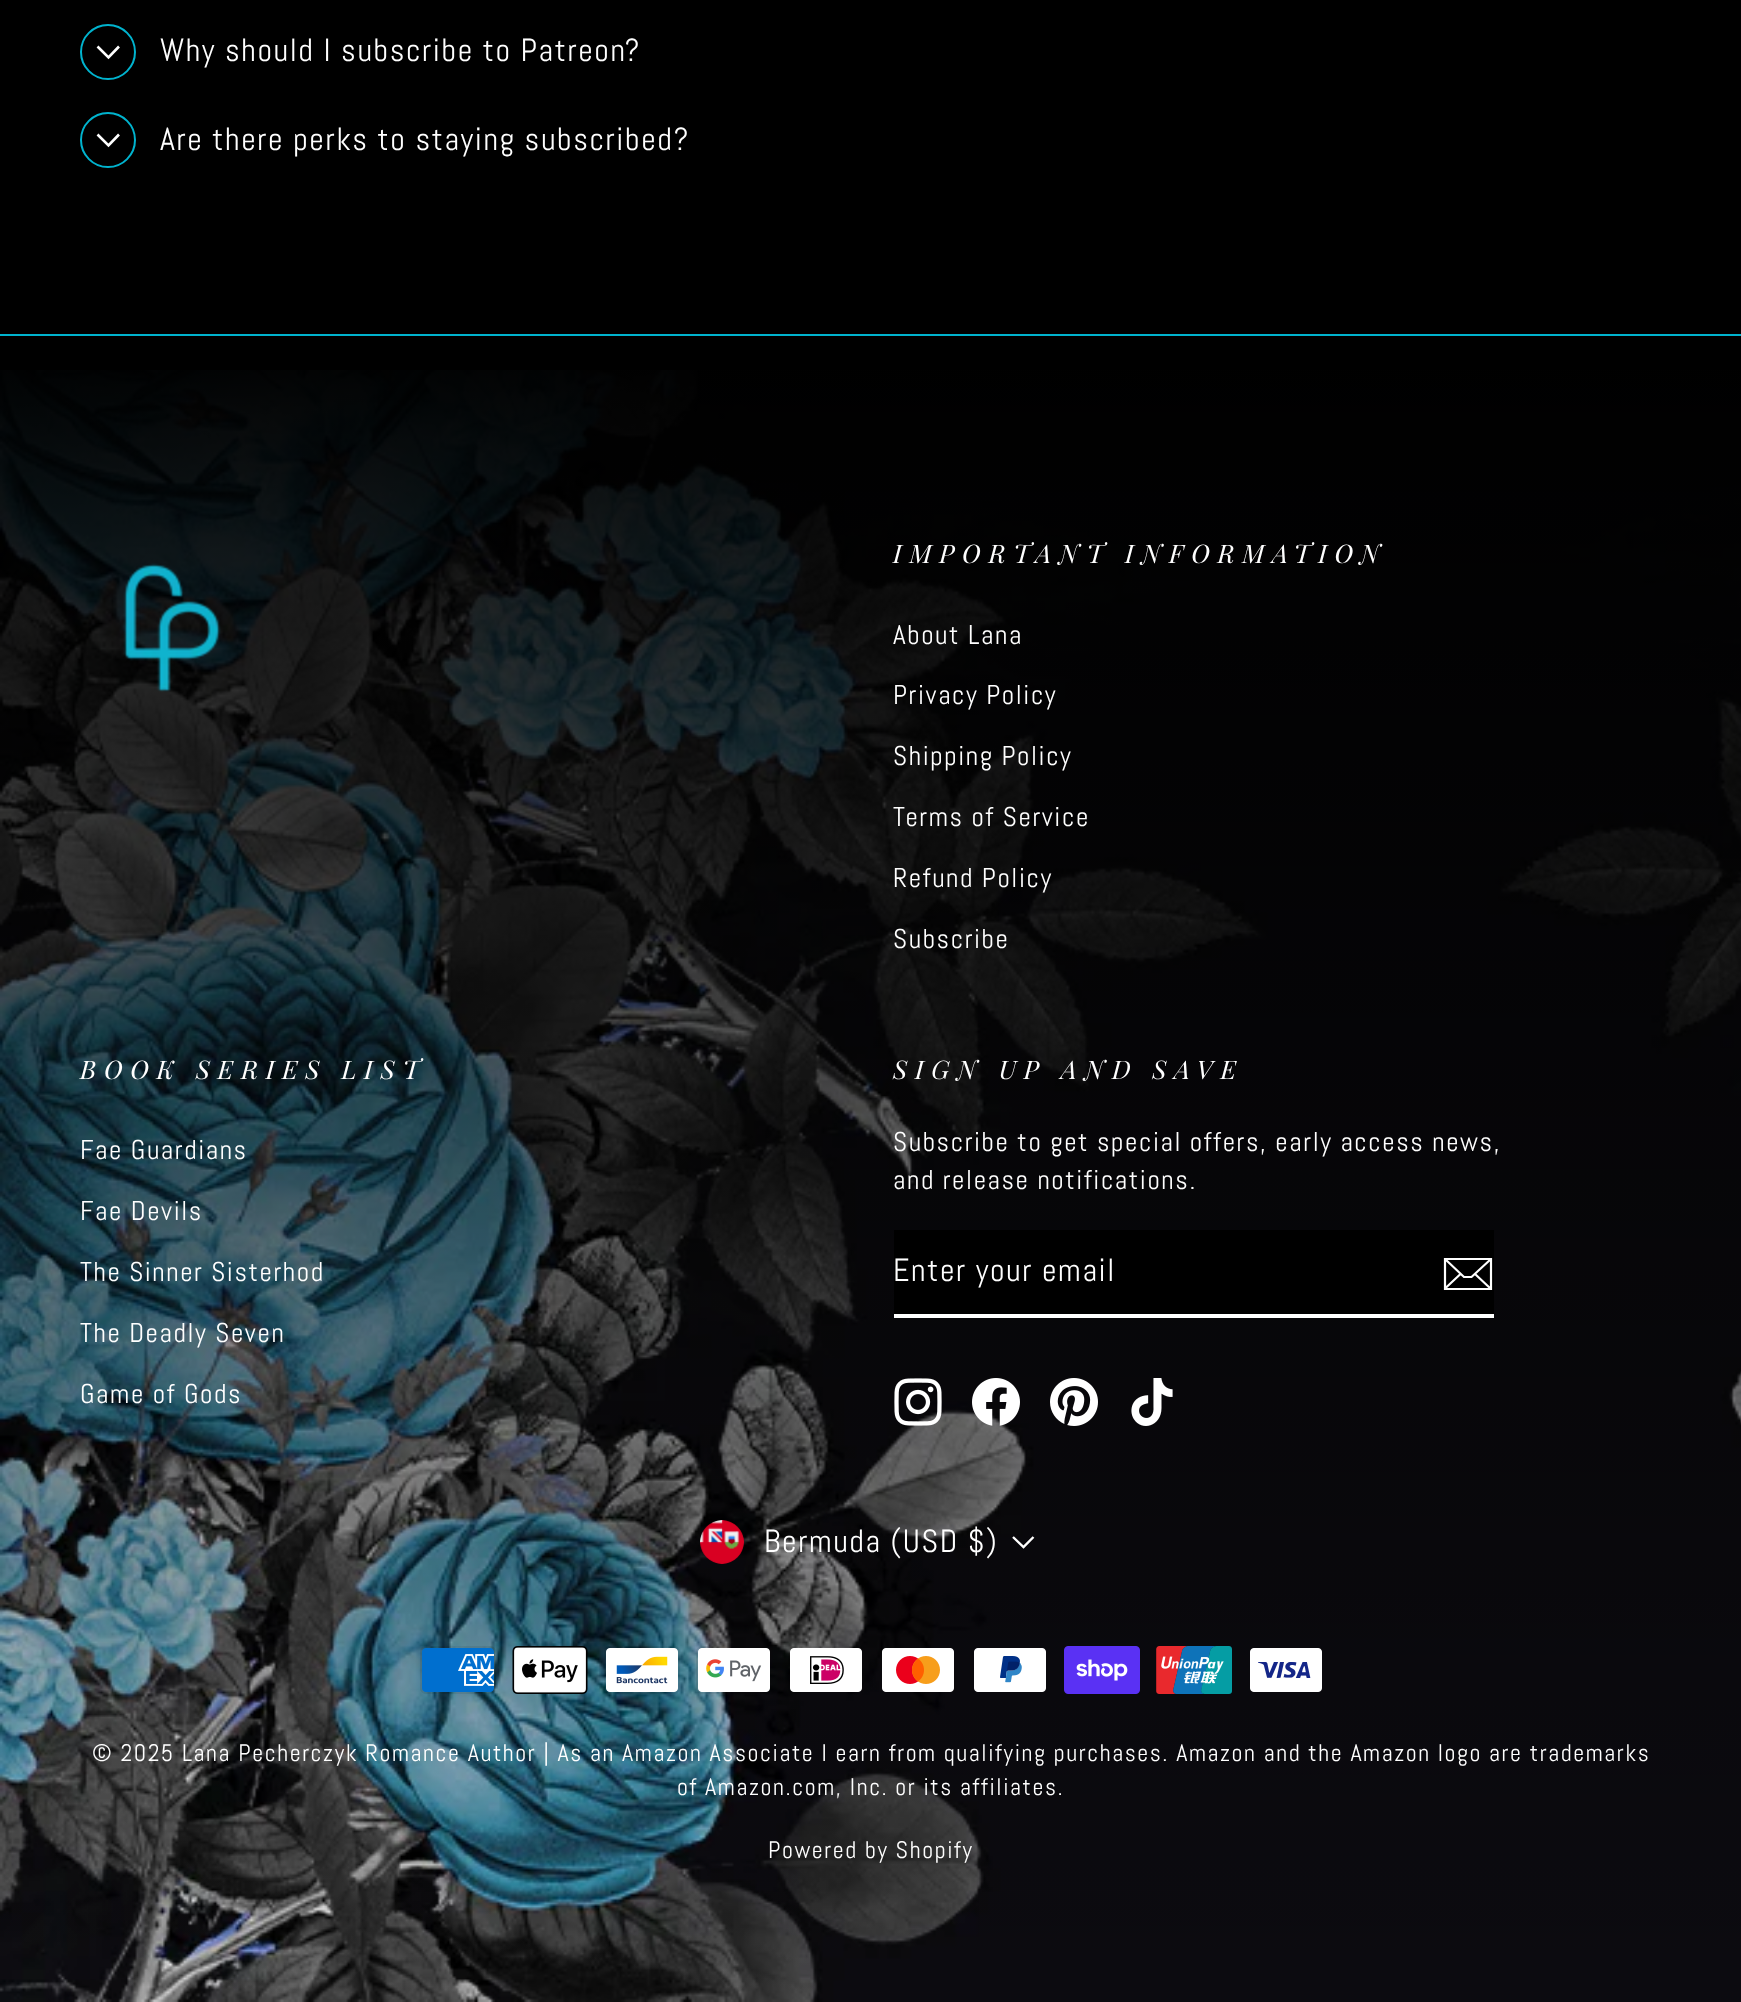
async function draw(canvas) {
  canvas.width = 1741;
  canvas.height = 2002;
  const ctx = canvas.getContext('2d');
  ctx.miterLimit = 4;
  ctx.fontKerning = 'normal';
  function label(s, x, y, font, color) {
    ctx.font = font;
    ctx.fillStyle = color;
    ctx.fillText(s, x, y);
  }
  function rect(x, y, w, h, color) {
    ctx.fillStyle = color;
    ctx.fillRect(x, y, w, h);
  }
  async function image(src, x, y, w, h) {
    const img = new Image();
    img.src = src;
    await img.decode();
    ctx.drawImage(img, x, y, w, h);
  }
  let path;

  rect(0, 0, 1741, 2002, '#000');
  ctx.beginPath();
  ctx.arc(108, 52, 27, 0, 2 * Math.PI);
  ctx.strokeStyle = '#00b3ce';
  ctx.lineWidth = 2;
  ctx.stroke();
  path = new Path2D('M97.5 46.5L108.5 57.5L119 46.5');
  ctx.strokeStyle = '#fff';
  ctx.lineWidth = 2.6;
  ctx.stroke(path);
  ctx.letterSpacing = '1.6px';
  label('Why should I subscribe to Patreon?', 160, 61, '32px Abel', '#fff');
  ctx.beginPath();
  ctx.arc(108, 140, 27, 0, 2 * Math.PI);
  ctx.strokeStyle = '#00b3ce';
  ctx.lineWidth = 2;
  ctx.stroke();
  path = new Path2D('M97.5 134.5L108.5 145.5L119 134.5');
  ctx.strokeStyle = '#fff';
  ctx.lineWidth = 2.6;
  ctx.stroke(path);
  label('Are there perks to staying subscribed?', 160, 150, '32px Abel', '#fff');
  await image('assets/img1.png', 0, 370, 1741, 1632);
  rect(0, 334, 1741, 2, '#00b3ce');
  await image('assets/img2.png', 123, 563, 98, 129);
  ctx.letterSpacing = '7.7px';
  label('IMPORTANT INFORMATION', 893, 563, 'italic 25.6px Playfair Display', '#fff');
  ctx.letterSpacing = '1.6px';
  label('About Lana', 893, 644, '27.2px Abel', '#fff');
  label('Privacy Policy', 893, 704, '27.2px Abel', '#fff');
  label('Shipping Policy', 893, 765, '27.2px Abel', '#fff');
  label('Terms of Service', 893, 826, '27.2px Abel', '#fff');
  label('Refund Policy', 893, 887, '27.2px Abel', '#fff');
  label('Subscribe', 893, 948, '27.2px Abel', '#fff');
  ctx.letterSpacing = '7.7px';
  label('BOOK SERIES LIST', 80, 1079, 'italic 25.6px Playfair Display', '#fff');
  ctx.letterSpacing = '1.6px';
  label('Fae Guardians', 80, 1159, '27.2px Abel', '#fff');
  label('Fae Devils', 80, 1220, '27.2px Abel', '#fff');
  label('The Sinner Sisterhod', 80, 1281, '27.2px Abel', '#fff');
  label('The Deadly Seven', 80, 1342, '27.2px Abel', '#fff');
  label('Game of Gods', 80, 1403, '27.2px Abel', '#fff');
  ctx.letterSpacing = '7.7px';
  label('SIGN UP AND SAVE', 893, 1079, 'italic 25.6px Playfair Display', '#fff');
  ctx.letterSpacing = '1.6px';
  label('Subscribe to get special offers, early access news,', 893, 1151, '27.2px Abel', '#fff');
  label('and release notifications.', 893, 1189, '27.2px Abel', '#fff');
  rect(894, 1230, 600, 84, '#000');
  rect(894, 1314, 600, 4, '#fff');
  label('Enter your email', 893, 1281, '32px Abel', '#fff');
  path = new Path2D('M1491 1289H1445V1259H1491ZM1445 1259L1464 1277H1471.5L1491 1259M1460.5 1274L1445 1288.5M1491 1289L1475 1274');
  ctx.lineWidth = 2.2;
  ctx.stroke(path);
  await image('assets/img3.png', 894, 1378, 48, 48);
  await image('assets/img4.png', 972, 1378, 48, 48);
  await image('assets/img5.png', 1050, 1378, 48, 48);
  await image('assets/img6.png', 1131, 1378, 42, 48);
  await image('assets/img7.png', 700, 1520, 44, 44);
  label('Bermuda (USD $)', 764, 1552, '32px Abel', '#fff');
  path = new Path2D('M1013 1537L1023.5 1547L1033.5 1537');
  ctx.lineWidth = 2.4;
  ctx.stroke(path);
  await image('assets/img8.png', 420, 1646, 76, 48);
  await image('assets/img9.png', 512, 1646, 76, 48);
  await image('assets/img10.png', 604, 1646, 76, 48);
  await image('assets/img11.png', 696, 1646, 74, 48);
  await image('assets/img12.png', 788, 1646, 74, 46);
  await image('assets/img13.png', 882, 1648, 72, 44);
  await image('assets/img14.png', 974, 1648, 72, 44);
  await image('assets/img15.png', 1064, 1646, 76, 48);
  await image('assets/img16.png', 1156, 1646, 76, 48);
  await image('assets/img17.png', 1250, 1648, 72, 44);
  label('© 2025 Lana Pecherczyk Romance Author | As an Amazon Associate I earn from qualifying purchases. Amazon and the Amazon logo are trademarks', 92, 1761, '24px Abel', '#fff');
  label('of Amazon.com, Inc. or its affiliates.', 677, 1795, '24px Abel', '#fff');
  label('Powered by Shopify', 768, 1858, '24px Abel', '#fff');
}

draw(document.querySelector('canvas'));
